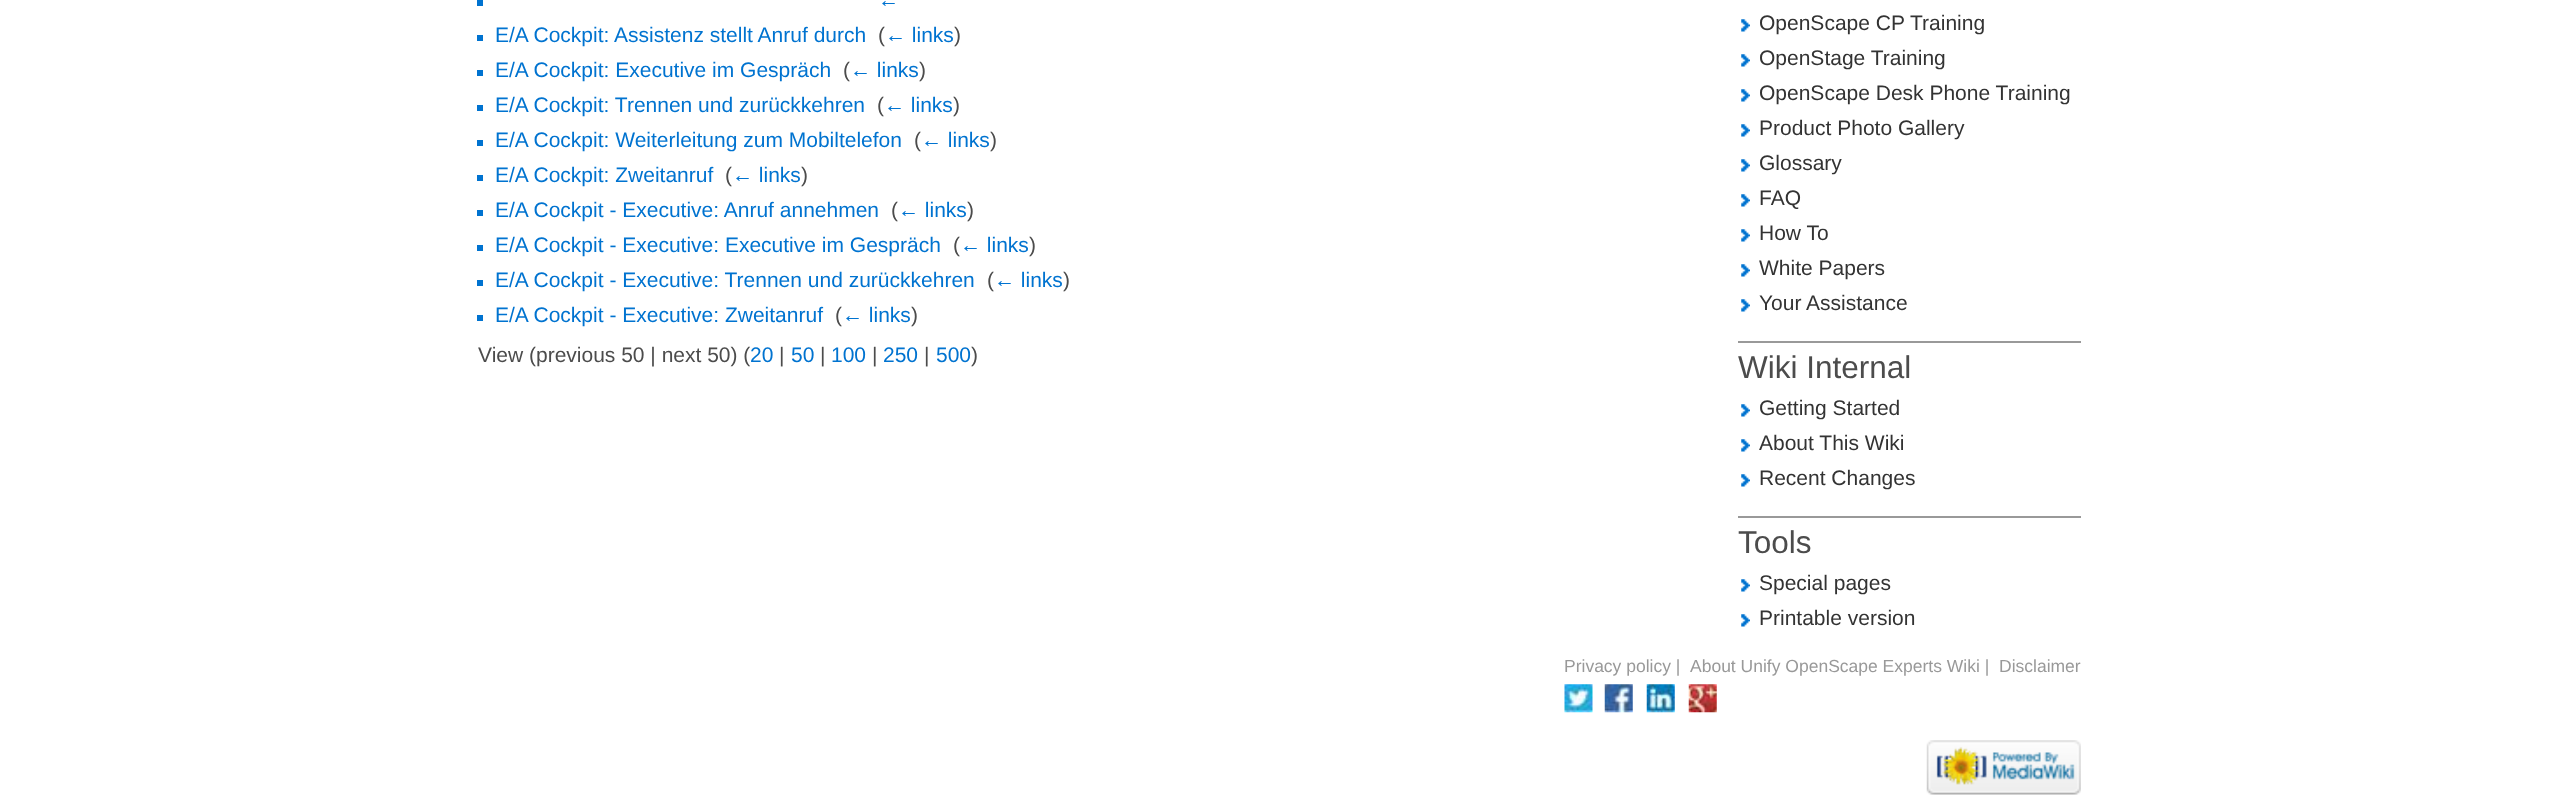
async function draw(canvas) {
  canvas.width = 2557;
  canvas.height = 797;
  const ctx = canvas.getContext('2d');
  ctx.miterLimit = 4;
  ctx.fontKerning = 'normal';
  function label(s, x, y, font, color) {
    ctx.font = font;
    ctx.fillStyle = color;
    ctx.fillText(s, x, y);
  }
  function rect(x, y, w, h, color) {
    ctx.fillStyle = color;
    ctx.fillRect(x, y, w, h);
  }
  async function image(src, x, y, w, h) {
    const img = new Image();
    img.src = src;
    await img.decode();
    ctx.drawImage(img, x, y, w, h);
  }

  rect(0, 0, 2557, 797, '#fff');
  rect(477, 0, 6, 6, '#0073d0');
  label('←', 878, 7, '21px Liberation Sans', '#0073d0');
  rect(477, 35, 6, 6, '#0073d0');
  label('E/A Cockpit: Assistenz stellt Anruf durch', 495, 42, '21px Liberation Sans', '#0073d0');
  label('(', 878, 42, '21px Liberation Sans', '#4c4c4c');
  label('← links', 885, 42, '21px Liberation Sans', '#0073d0');
  label(')', 954, 42, '21px Liberation Sans', '#4c4c4c');
  rect(477, 70, 6, 6, '#0073d0');
  label('E/A Cockpit: Executive im Gespräch', 495, 77, '21px Liberation Sans', '#0073d0');
  label('(', 843, 77, '21px Liberation Sans', '#4c4c4c');
  label('← links', 850, 77, '21px Liberation Sans', '#0073d0');
  label(')', 919, 77, '21px Liberation Sans', '#4c4c4c');
  rect(477, 105, 6, 6, '#0073d0');
  label('E/A Cockpit: Trennen und zurückkehren', 495, 112, '21px Liberation Sans', '#0073d0');
  label('(', 877, 112, '21px Liberation Sans', '#4c4c4c');
  label('← links', 884, 112, '21px Liberation Sans', '#0073d0');
  label(')', 953, 112, '21px Liberation Sans', '#4c4c4c');
  rect(477, 140, 6, 6, '#0073d0');
  label('E/A Cockpit: Weiterleitung zum Mobiltelefon', 495, 147, '21px Liberation Sans', '#0073d0');
  label('(', 914, 147, '21px Liberation Sans', '#4c4c4c');
  label('← links', 921, 147, '21px Liberation Sans', '#0073d0');
  label(')', 990, 147, '21px Liberation Sans', '#4c4c4c');
  rect(477, 175, 6, 6, '#0073d0');
  label('E/A Cockpit: Zweitanruf', 495, 182, '21px Liberation Sans', '#0073d0');
  label('(', 725, 182, '21px Liberation Sans', '#4c4c4c');
  label('← links', 732, 182, '21px Liberation Sans', '#0073d0');
  label(')', 801, 182, '21px Liberation Sans', '#4c4c4c');
  rect(477, 210, 6, 6, '#0073d0');
  label('E/A Cockpit - Executive: Anruf annehmen', 495, 217, '21px Liberation Sans', '#0073d0');
  label('(', 891, 217, '21px Liberation Sans', '#4c4c4c');
  label('← links', 898, 217, '21px Liberation Sans', '#0073d0');
  label(')', 967, 217, '21px Liberation Sans', '#4c4c4c');
  rect(477, 245, 6, 6, '#0073d0');
  label('E/A Cockpit - Executive: Executive im Gespräch', 495, 252, '21px Liberation Sans', '#0073d0');
  label('(', 953, 252, '21px Liberation Sans', '#4c4c4c');
  label('← links', 960, 252, '21px Liberation Sans', '#0073d0');
  label(')', 1029, 252, '21px Liberation Sans', '#4c4c4c');
  rect(477, 280, 6, 6, '#0073d0');
  label('E/A Cockpit - Executive: Trennen und zurückkehren', 495, 287, '21px Liberation Sans', '#0073d0');
  label('(', 987, 287, '21px Liberation Sans', '#4c4c4c');
  label('← links', 994, 287, '21px Liberation Sans', '#0073d0');
  label(')', 1063, 287, '21px Liberation Sans', '#4c4c4c');
  rect(477, 315, 6, 6, '#0073d0');
  label('E/A Cockpit - Executive: Zweitanruf', 495, 322, '21px Liberation Sans', '#0073d0');
  label('(', 835, 322, '21px Liberation Sans', '#4c4c4c');
  label('← links', 842, 322, '21px Liberation Sans', '#0073d0');
  label(')', 911, 322, '21px Liberation Sans', '#4c4c4c');
  label('View (previous 50 | next 50) (', 478, 362, '21px Liberation Sans', '#4c4c4c');
  label('20', 750, 362, '21px Liberation Sans', '#0073d0');
  label('|', 779, 362, '21px Liberation Sans', '#4c4c4c');
  label('50', 791, 362, '21px Liberation Sans', '#0073d0');
  label('|', 820, 362, '21px Liberation Sans', '#4c4c4c');
  label('100', 831, 362, '21px Liberation Sans', '#0073d0');
  label('|', 872, 362, '21px Liberation Sans', '#4c4c4c');
  label('250', 883, 362, '21px Liberation Sans', '#0073d0');
  label('|', 924, 362, '21px Liberation Sans', '#4c4c4c');
  label('500', 936, 362, '21px Liberation Sans', '#0073d0');
  label(')', 971, 362, '21px Liberation Sans', '#4c4c4c');
  await image('assets/img1.png', 1741, 19, 9, 13);
  label('OpenScape CP Training', 1759, 30, '21px Liberation Sans', '#333');
  await image('assets/img1.png', 1741, 54, 9, 13);
  label('OpenStage Training', 1759, 65, '21px Liberation Sans', '#333');
  await image('assets/img1.png', 1741, 89, 9, 13);
  label('OpenScape Desk Phone Training', 1759, 100, '21px Liberation Sans', '#333');
  await image('assets/img1.png', 1741, 124, 9, 13);
  label('Product Photo Gallery', 1759, 135, '21px Liberation Sans', '#333');
  await image('assets/img1.png', 1741, 159, 9, 13);
  label('Glossary', 1759, 170, '21px Liberation Sans', '#333');
  await image('assets/img1.png', 1741, 194, 9, 13);
  label('FAQ', 1759, 205, '21px Liberation Sans', '#333');
  await image('assets/img1.png', 1741, 229, 9, 13);
  label('How To', 1759, 240, '21px Liberation Sans', '#333');
  await image('assets/img1.png', 1741, 264, 9, 13);
  label('White Papers', 1759, 275, '21px Liberation Sans', '#333');
  await image('assets/img1.png', 1741, 299, 9, 13);
  label('Your Assistance', 1759, 310, '21px Liberation Sans', '#333');
  rect(1738, 341, 343, 2, '#999');
  label('Wiki Internal', 1738, 378, '31.5px Liberation Sans', '#4c4c4c');
  await image('assets/img1.png', 1741, 404, 9, 13);
  label('Getting Started', 1759, 415, '21px Liberation Sans', '#333');
  await image('assets/img1.png', 1741, 439, 9, 13);
  label('About This Wiki', 1759, 450, '21px Liberation Sans', '#333');
  await image('assets/img1.png', 1741, 474, 9, 13);
  label('Recent Changes', 1759, 485, '21px Liberation Sans', '#333');
  rect(1738, 516, 343, 2, '#999');
  label('Tools', 1738, 553, '31.5px Liberation Sans', '#4c4c4c');
  await image('assets/img1.png', 1741, 579, 9, 13);
  label('Special pages', 1759, 590, '21px Liberation Sans', '#333');
  await image('assets/img1.png', 1741, 614, 9, 13);
  label('Printable version', 1759, 625, '21px Liberation Sans', '#333');
  label('Privacy policy |', 1564, 672, '17.5px Liberation Sans', '#999');
  label('About Unify OpenScape Experts Wiki |', 1690, 672, '17.5px Liberation Sans', '#999');
  label('Disclaimer', 1999, 672, '17.5px Liberation Sans', '#999');
  await image('assets/img2.png', 1564, 684, 29, 29);
  await image('assets/img3.png', 1604, 684, 29, 29);
  await image('assets/img4.png', 1646, 684, 29, 29);
  await image('assets/img5.png', 1688, 684, 29, 29);
  await image('assets/img6.png', 1926, 740, 155, 55);
}

draw(document.querySelector('canvas'));
